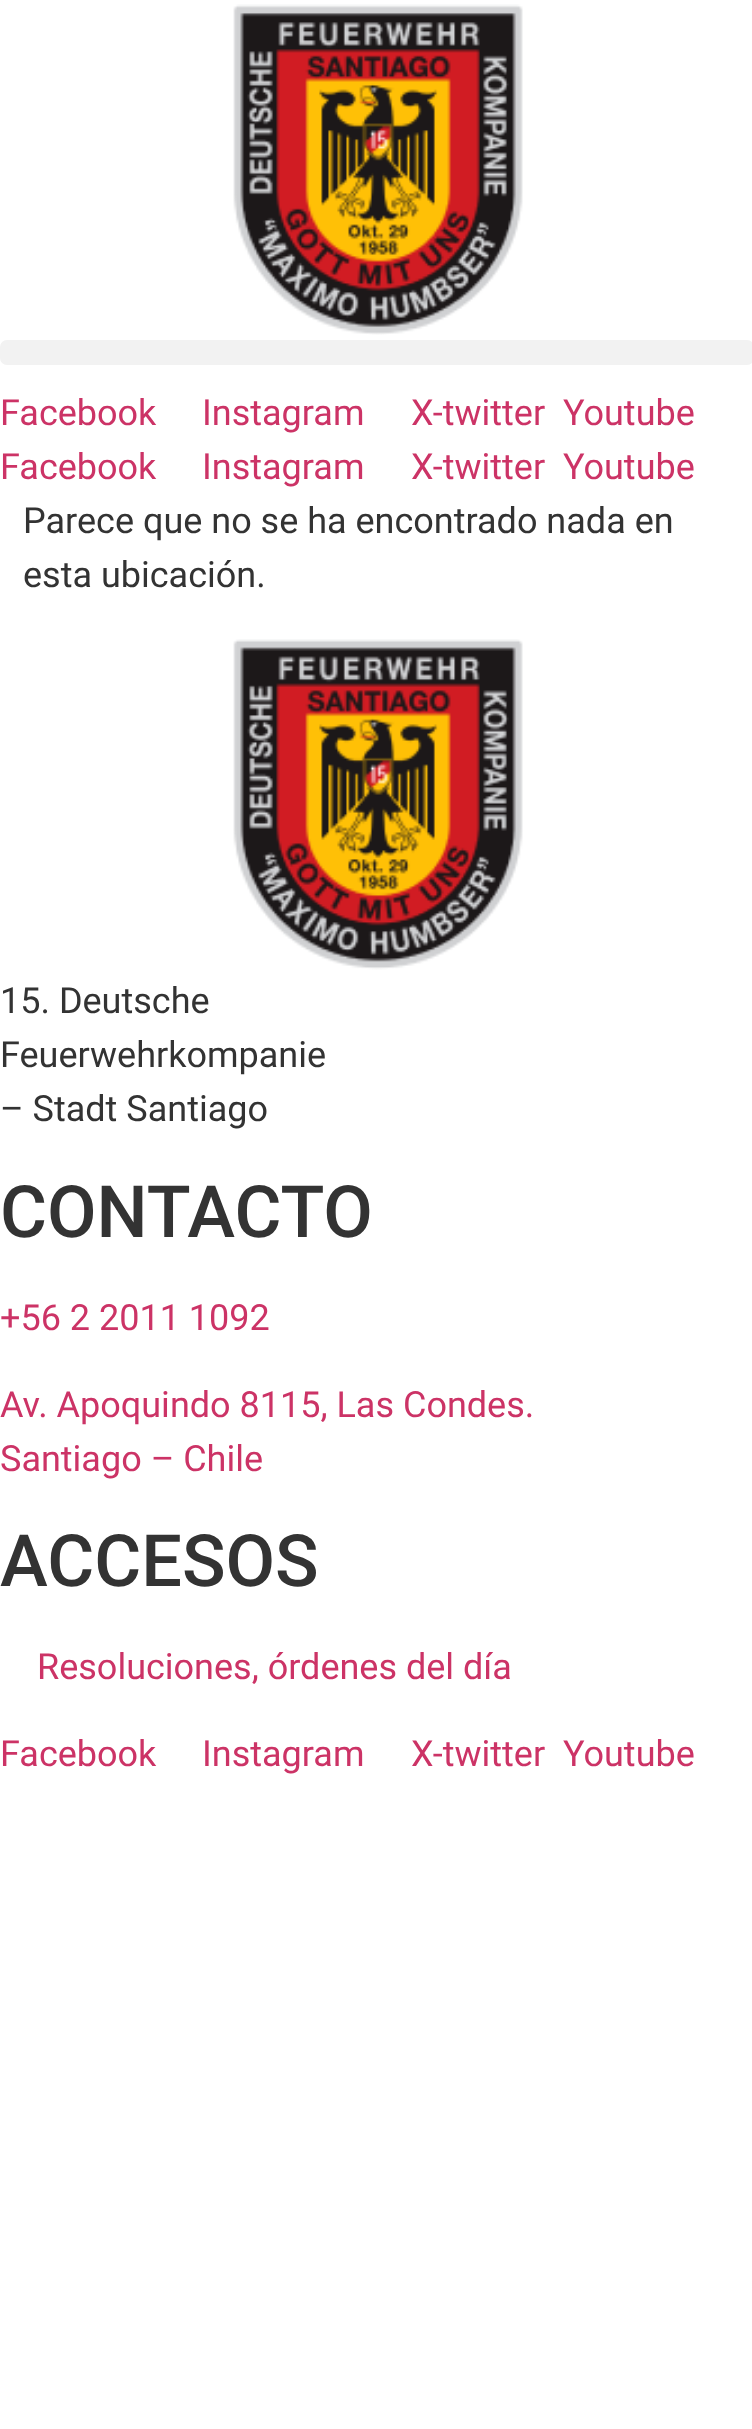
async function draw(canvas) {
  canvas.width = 752;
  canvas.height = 2429;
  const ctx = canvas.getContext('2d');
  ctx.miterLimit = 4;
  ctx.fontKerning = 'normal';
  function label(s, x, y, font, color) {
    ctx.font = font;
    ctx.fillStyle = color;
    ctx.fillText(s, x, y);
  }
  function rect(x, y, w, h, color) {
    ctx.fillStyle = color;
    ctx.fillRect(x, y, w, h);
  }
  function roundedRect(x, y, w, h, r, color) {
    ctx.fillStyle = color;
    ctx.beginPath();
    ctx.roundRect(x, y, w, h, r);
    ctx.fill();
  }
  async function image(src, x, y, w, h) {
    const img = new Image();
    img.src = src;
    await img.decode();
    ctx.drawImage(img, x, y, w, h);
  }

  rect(0, 0, 752, 2429, '#fff');
  await image('assets/img1.png', 233, 4, 290, 331);
  roundedRect(0, 340, 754, 25, 7, '#f2f2f2');
  label('Facebook', 0, 425, '36px Roboto', '#c36');
  label('Instagram', 202, 425, '36px Roboto', '#c36');
  label('X-twitter', 411, 425, '36px Roboto', '#c36');
  label('Youtube', 563, 425, '36px Roboto', '#c36');
  label('Facebook', 0, 479, '36px Roboto', '#c36');
  label('Instagram', 202, 479, '36px Roboto', '#c36');
  label('X-twitter', 411, 479, '36px Roboto', '#c36');
  label('Youtube', 563, 479, '36px Roboto', '#c36');
  label('Parece que no se ha encontrado nada en', 23, 533, '36px Roboto', '#333');
  label('esta ubicación.', 23, 587, '36px Roboto', '#333');
  await image('assets/img2.png', 233, 639, 290, 331);
  label('15. Deutsche', 0, 1013, '36px Roboto', '#333');
  label('Feuerwehrkompanie', 0, 1067, '36px Roboto', '#333');
  label('– Stadt Santiago', 0, 1121, '36px Roboto', '#333');
  label('CONTACTO', 0, 1237, '500 72px Roboto', '#333');
  label('+56 2 2011 1092', 0, 1330, '36px Roboto', '#c36');
  label('Av. Apoquindo 8115, Las Condes.', 0, 1417, '36px Roboto', '#c36');
  label('Santiago – Chile', 0, 1471, '36px Roboto', '#c36');
  label('ACCESOS', 0, 1586, '500 72px Roboto', '#333');
  label('Resoluciones, órdenes del día', 37, 1679, '36px Roboto', '#c36');
  label('Facebook', 0, 1766, '36px Roboto', '#c36');
  label('Instagram', 202, 1766, '36px Roboto', '#c36');
  label('X-twitter', 411, 1766, '36px Roboto', '#c36');
  label('Youtube', 563, 1766, '36px Roboto', '#c36');
}

draw(document.querySelector('canvas'));
